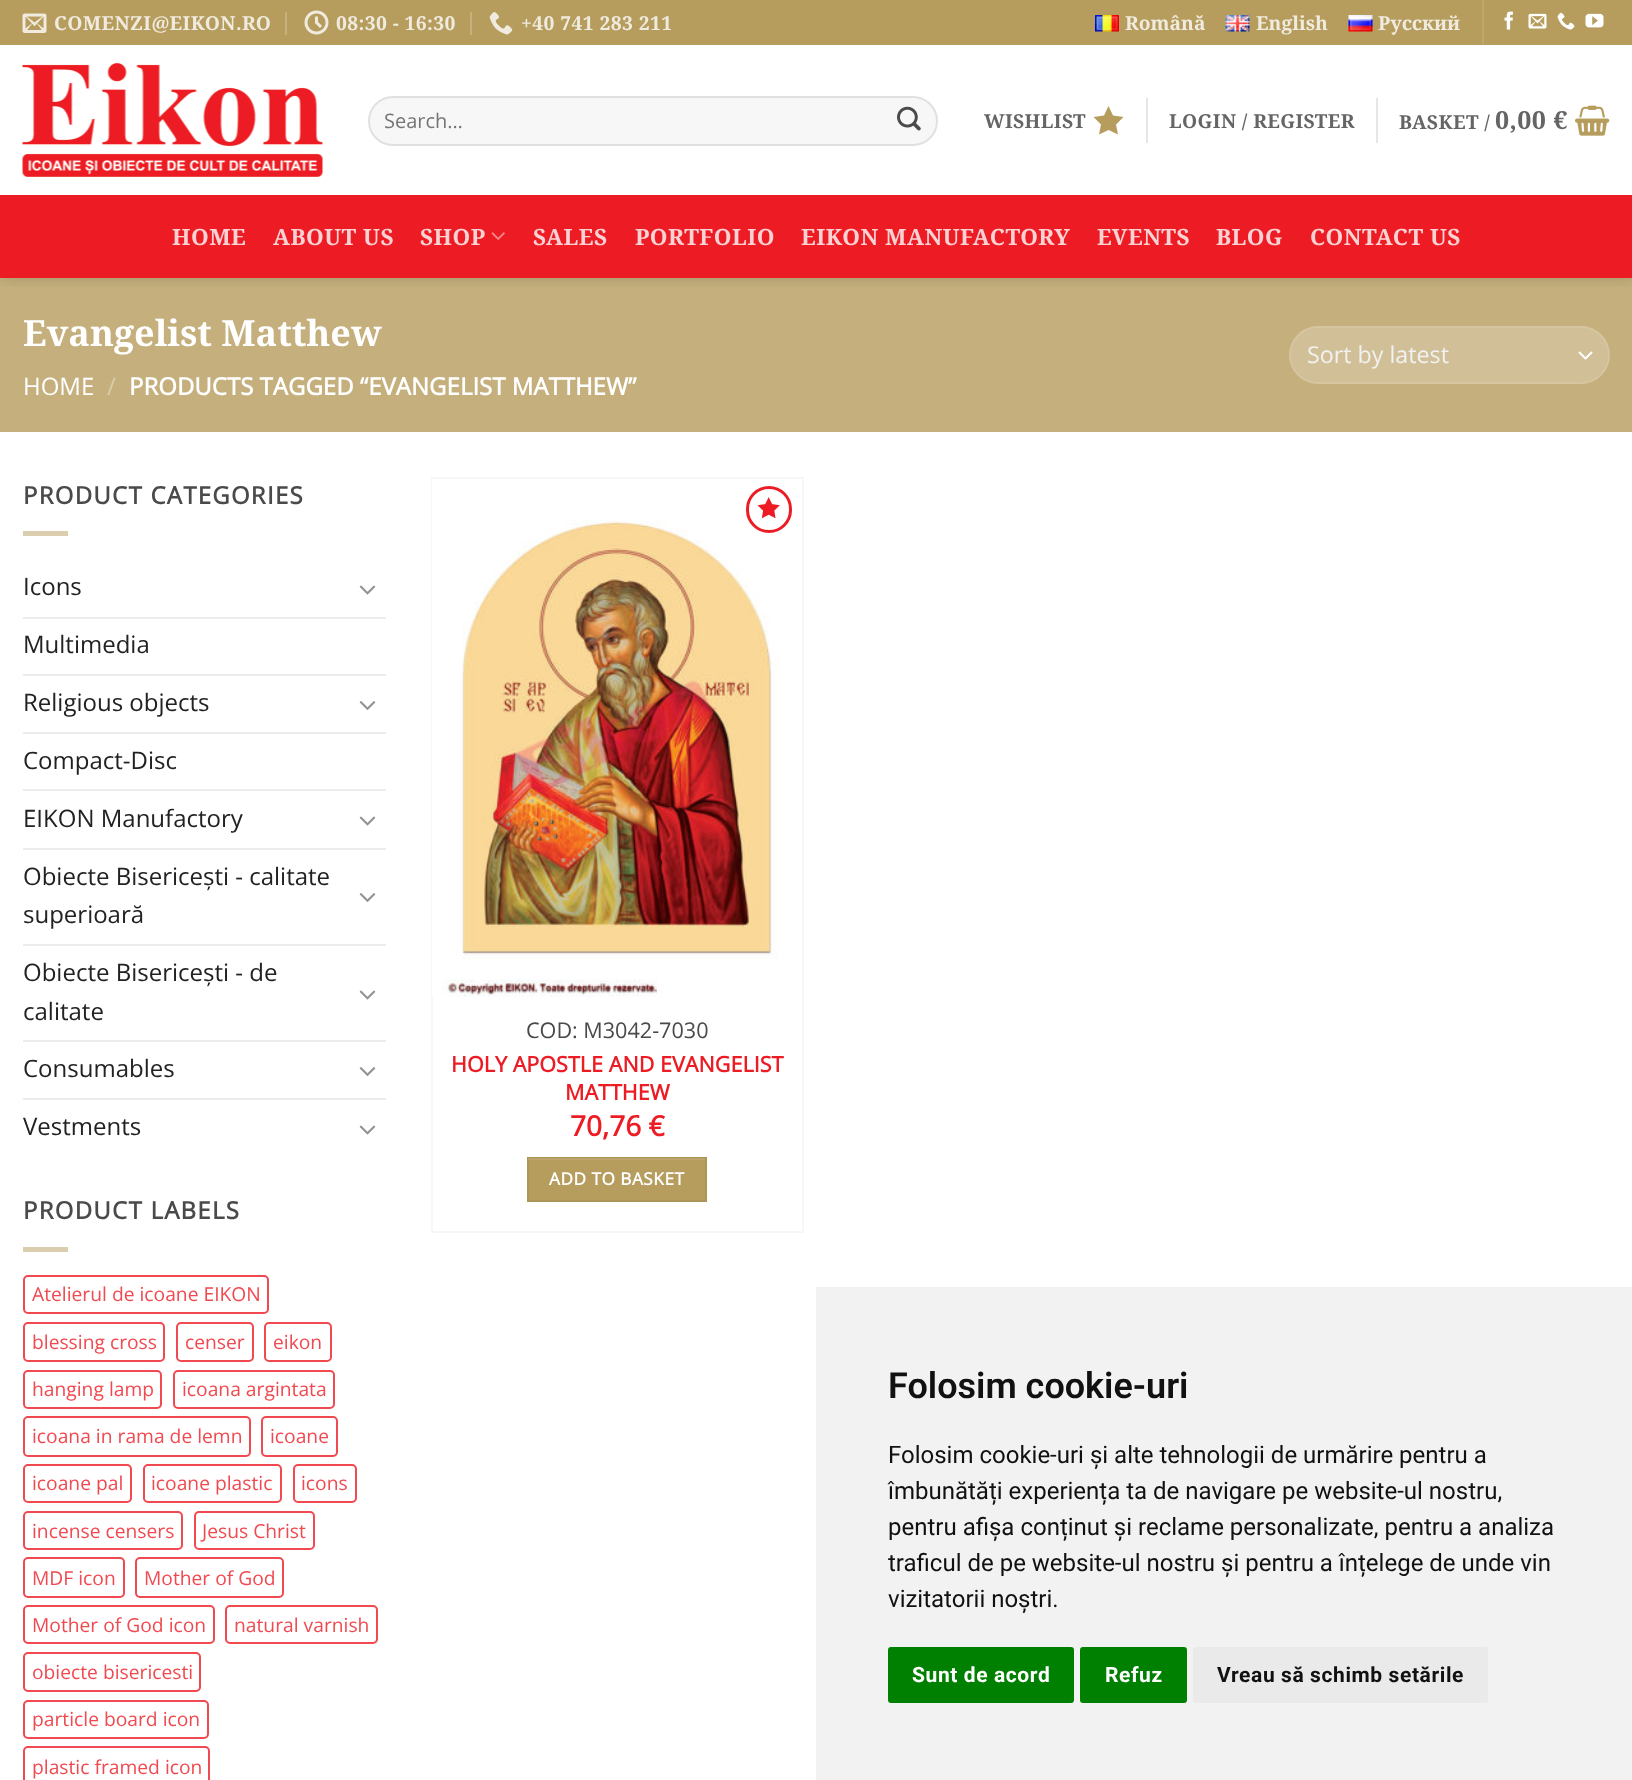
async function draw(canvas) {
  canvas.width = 1632;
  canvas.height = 1780;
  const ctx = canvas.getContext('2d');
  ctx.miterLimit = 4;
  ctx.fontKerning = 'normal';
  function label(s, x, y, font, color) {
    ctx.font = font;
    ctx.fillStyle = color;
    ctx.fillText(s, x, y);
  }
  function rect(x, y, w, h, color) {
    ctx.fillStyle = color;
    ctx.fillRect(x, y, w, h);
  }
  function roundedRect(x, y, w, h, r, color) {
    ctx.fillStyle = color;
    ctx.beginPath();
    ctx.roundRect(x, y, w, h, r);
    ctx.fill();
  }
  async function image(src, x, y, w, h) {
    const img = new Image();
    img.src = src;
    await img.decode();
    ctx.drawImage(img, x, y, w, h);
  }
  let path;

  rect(0, 0, 1632, 1780, '#fff');
  rect(0, 278, 1632, 154, '#c5b07d');
  ctx.save();
  ctx.beginPath();
  ctx.rect(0, 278, 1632, 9);
  ctx.clip();
  ctx.fillStyle = '#00000026';
  ctx.filter = 'blur(7.5px)';
  ctx.beginPath();
  ctx.rect(2, 2, 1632, 277);
  ctx.fill();
  ctx.filter = 'none';
  ctx.restore();
  rect(0, 0, 1632, 45, '#b69d5d');
  await image('assets/img1.png', 22, 13, 25, 20);
  ctx.letterSpacing = '0.4px';
  label('COMENZI@EIKON.RO', 54, 30, 'bold 19.25px Noto Serif', '#f0ebdf');
  rect(285, 12, 2, 23, '#c5b17d');
  await image('assets/img2.png', 304, 10, 25, 25);
  label('08:30 - 16:30', 336, 30, 'bold 19.25px Noto Serif', '#f0ebdf');
  rect(470, 12, 2, 23, '#c5b17d');
  await image('assets/img3.png', 489, 12, 24, 23);
  label('+40 741 283 211', 521, 30, 'bold 19.25px Noto Serif', '#f0ebdf');
  await image('assets/img4.png', 1095, 15, 24, 17);
  ctx.letterSpacing = '0px';
  label('Română', 1125, 30, 'bold 19.25px Noto Serif', '#f0ebdf');
  await image('assets/img5.png', 1225, 15, 25, 17);
  label('English', 1256, 30, 'bold 19.25px Noto Serif', '#f0ebdf');
  await image('assets/img6.png', 1348, 15, 25, 17);
  label('Русский', 1378, 30, 'bold 19.25px Noto Serif', '#f0ebdf');
  rect(1482, 0, 2, 45, '#bda76d');
  await image('assets/img7.png', 1504, 11, 9, 19);
  await image('assets/img8.png', 1528, 13, 19, 16);
  await image('assets/img9.png', 1557, 12, 18, 18);
  await image('assets/img10.png', 1585, 13, 19, 15);
  await image('assets/img11.png', 22, 63, 301, 114);
  roundedRect(368, 96, 570, 50, 25, '#f7f7f7');
  ctx.beginPath();
  ctx.roundRect(369, 97, 568, 48, 24);
  ctx.strokeStyle = '#00000017';
  ctx.lineWidth = 2;
  ctx.stroke();
  label('Search…', 384, 128, '20px Open Sans', '#757575');
  await image('assets/img12.png', 897, 106, 24, 25);
  ctx.letterSpacing = '0.4px';
  label('WISHLIST', 984, 128, 'bold 19.25px Noto Serif', '#656565');
  ctx.fillStyle = '#b69d5d';
  path = new Path2D('M1123.5 117L1113 115.5L1108.5 106L1104 115.5L1093.5 117L1101 124.5L1099 134.5L1108.5 130L1118 134.5L1116 124.5Z');
  ctx.fill(path);
  rect(1146, 98, 2, 45, '#e6e6e6');
  label('LOGIN / REGISTER', 1169, 128, 'bold 19.25px Noto Serif', '#656565');
  rect(1376, 98, 2, 45, '#e6e6e6');
  label('BASKET /', 1399, 129, 'bold 19.25px Noto Serif', '#656565');
  label('0,00 €', 1495, 129, 'bold 25px Noto Serif', '#656565');
  await image('assets/img13.png', 1575, 105, 35, 31);
  rect(0, 195, 1632, 83, '#ed1c24');
  ctx.letterSpacing = '0.5px';
  label('HOME', 172, 245, 'bold 22.5px Noto Serif', '#fbd2d3');
  label('ABOUT US', 273, 245, 'bold 22.5px Noto Serif', '#fbd2d3');
  label('SHOP', 420, 245, 'bold 22.5px Noto Serif', '#fbd2d3');
  await image('assets/img14.png', 491, 232, 14, 8);
  label('SALES', 533, 245, 'bold 22.5px Noto Serif', '#fbd2d3');
  label('PORTFOLIO', 635, 245, 'bold 22.5px Noto Serif', '#fbd2d3');
  label('EIKON MANUFACTORY', 801, 245, 'bold 22.5px Noto Serif', '#fbd2d3');
  label('EVENTS', 1097, 245, 'bold 22.5px Noto Serif', '#fbd2d3');
  label('BLOG', 1216, 245, 'bold 22.5px Noto Serif', '#fbd2d3');
  label('CONTACT US', 1310, 245, 'bold 22.5px Noto Serif', '#fbd2d3');
  ctx.letterSpacing = '0px';
  label('Evangelist Matthew', 23, 346, 'bold 36px Noto Serif', '#fff');
  label('HOME', 23, 395, '24px Open Sans', '#fff');
  label('/', 107, 395, '24px Open Sans', '#d9ccab');
  label('PRODUCTS TAGGED “EVANGELIST MATTHEW”', 129, 395, 'bold 24px Open Sans', '#fff');
  roundedRect(1289, 326, 321, 58, 29, '#d1c097');
  path = new Path2D('M1579.5 352.5L1585.5 358.5L1591.5 352.5');
  ctx.strokeStyle = '#fff';
  ctx.lineCap = 'round';
  ctx.lineJoin = 'round';
  ctx.stroke(path);
  ctx.beginPath();
  ctx.roundRect(1290, 327, 319, 56, 28);
  ctx.strokeStyle = '#ffffff17';
  ctx.lineJoin = 'miter';
  ctx.stroke();
  label('Sort by latest', 1307, 363, '23.25px Open Sans', '#f1f1f1');
  ctx.letterSpacing = '1.25px';
  label('PRODUCT CATEGORIES', 23, 504, 'bold 24px Open Sans', '#4a4a4a');
  rect(23, 531, 45, 5, '#dbceae');
  ctx.letterSpacing = '0px';
  label('Icons', 23, 595, '24px Open Sans', '#222');
  await image('assets/img15.png', 359, 585, 17, 10);
  rect(23, 617, 363, 2, '#ececec');
  label('Multimedia', 23, 653, '24px Open Sans', '#222');
  rect(23, 674, 363, 2, '#ececec');
  label('Religious objects', 23, 711, '24px Open Sans', '#222');
  await image('assets/img16.png', 359, 701, 17, 9);
  rect(23, 732, 363, 2, '#ececec');
  label('Compact-Disc', 23, 769, '24px Open Sans', '#222');
  rect(23, 789, 363, 2, '#ececec');
  label('EIKON Manufactory', 23, 827, '24px Open Sans', '#222');
  await image('assets/img15.png', 359, 816, 17, 10);
  rect(23, 848, 363, 2, '#ececec');
  label('Obiecte Bisericești - calitate', 23, 885, '24px Open Sans', '#222');
  label('superioară', 23, 923, '24px Open Sans', '#222');
  await image('assets/img16.png', 359, 893, 17, 9);
  rect(23, 944, 363, 2, '#ececec');
  label('Obiecte Bisericești - de', 23, 981, '24px Open Sans', '#222');
  label('calitate', 23, 1020, '24px Open Sans', '#222');
  await image('assets/img15.png', 359, 990, 17, 10);
  rect(23, 1040, 363, 2, '#ececec');
  label('Consumables', 23, 1077, '24px Open Sans', '#222');
  await image('assets/img16.png', 359, 1067, 17, 9);
  rect(23, 1098, 363, 2, '#ececec');
  label('Vestments', 23, 1135, '24px Open Sans', '#222');
  await image('assets/img15.png', 359, 1125, 17, 10);
  ctx.letterSpacing = '1.25px';
  label('PRODUCT LABELS', 23, 1219, 'bold 24px Open Sans', '#4a4a4a');
  rect(23, 1247, 45, 5, '#dbceae');
  ctx.beginPath();
  ctx.roundRect(24, 1276, 244, 37, 4);
  ctx.strokeStyle = '#f14950';
  ctx.stroke();
  ctx.letterSpacing = '0px';
  label('Atelierul de icoane EIKON', 32, 1301, '19.25px Open Sans', '#f14950');
  ctx.beginPath();
  ctx.roundRect(24, 1323, 140, 38, 4);
  ctx.stroke();
  label('blessing cross', 32, 1349, '19.25px Open Sans', '#f14950');
  ctx.beginPath();
  ctx.roundRect(177, 1323, 76, 38, 4);
  ctx.stroke();
  label('censer', 185, 1349, '19.25px Open Sans', '#f14950');
  ctx.beginPath();
  ctx.roundRect(265, 1323, 66, 38, 4);
  ctx.stroke();
  label('eikon', 273, 1349, '19.25px Open Sans', '#f14950');
  ctx.beginPath();
  ctx.roundRect(24, 1371, 137, 37, 4);
  ctx.stroke();
  label('hanging lamp', 32, 1396, '19.25px Open Sans', '#f14950');
  ctx.beginPath();
  ctx.roundRect(174, 1371, 160, 37, 4);
  ctx.stroke();
  label('icoana argintata', 182, 1396, '19.25px Open Sans', '#f14950');
  ctx.beginPath();
  ctx.roundRect(24, 1417, 226, 39, 4);
  ctx.stroke();
  label('icoana in rama de lemn', 32, 1443, '19.25px Open Sans', '#f14950');
  ctx.beginPath();
  ctx.roundRect(262, 1417, 75, 39, 4);
  ctx.stroke();
  label('icoane', 270, 1443, '19.25px Open Sans', '#f14950');
  ctx.beginPath();
  ctx.roundRect(24, 1465, 107, 37, 4);
  ctx.stroke();
  label('icoane pal', 32, 1490, '19.25px Open Sans', '#f14950');
  ctx.beginPath();
  ctx.roundRect(144, 1465, 137, 37, 4);
  ctx.stroke();
  label('icoane plastic', 151, 1490, '19.25px Open Sans', '#f14950');
  ctx.beginPath();
  ctx.roundRect(294, 1465, 62, 37, 4);
  ctx.stroke();
  label('icons', 301, 1490, '19.25px Open Sans', '#f14950');
  ctx.beginPath();
  ctx.roundRect(24, 1512, 158, 37, 4);
  ctx.stroke();
  label('incense censers', 32, 1538, '19.25px Open Sans', '#f14950');
  ctx.beginPath();
  ctx.roundRect(195, 1512, 119, 37, 4);
  ctx.stroke();
  label('Jesus Christ', 202, 1538, '19.25px Open Sans', '#f14950');
  ctx.beginPath();
  ctx.roundRect(24, 1558, 100, 39, 4);
  ctx.stroke();
  label('MDF icon', 32, 1585, '19.25px Open Sans', '#f14950');
  ctx.beginPath();
  ctx.roundRect(136, 1558, 147, 39, 4);
  ctx.stroke();
  label('Mother of God', 144, 1585, '19.25px Open Sans', '#f14950');
  ctx.beginPath();
  ctx.roundRect(24, 1606, 190, 37, 4);
  ctx.stroke();
  label('Mother of God icon', 32, 1632, '19.25px Open Sans', '#f14950');
  ctx.beginPath();
  ctx.roundRect(226, 1606, 151, 37, 4);
  ctx.stroke();
  label('natural varnish', 234, 1632, '19.25px Open Sans', '#f14950');
  ctx.beginPath();
  ctx.roundRect(24, 1653, 176, 38, 4);
  ctx.stroke();
  label('obiecte bisericesti', 32, 1679, '19.25px Open Sans', '#f14950');
  ctx.beginPath();
  ctx.roundRect(24, 1701, 184, 37, 4);
  ctx.stroke();
  label('particle board icon', 32, 1726, '19.25px Open Sans', '#f14950');
  ctx.beginPath();
  ctx.roundRect(24, 1747, 185, 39, 4);
  ctx.stroke();
  label('plastic framed icon', 32, 1774, '19.25px Open Sans', '#f14950');
  ctx.strokeStyle = '#f7f7f7';
  ctx.strokeRect(432, 478, 371, 754);
  await image('assets/img17.png', 432, 479, 347, 518);
  ctx.beginPath();
  ctx.roundRect(747.5, 487.5, 43, 44, 21.5);
  ctx.strokeStyle = '#ed1c24';
  ctx.lineWidth = 3;
  ctx.stroke();
  await image('assets/img18.png', 757, 497, 23, 22);
  label('COD: M3042-7030', 526, 1038, '21.6px Open Sans', '#4a4a4a');
  label('HOLY APOSTLE AND EVANGELIST', 451, 1072, 'bold 21.6px Open Sans', '#ed1c24');
  label('MATTHEW', 565, 1100, 'bold 21.6px Open Sans', '#ed1c24');
  label('70,76 €', 570, 1136, 'bold 28px Open Sans', '#ed1c24');
  ctx.fillStyle = '#b69d5d';
  ctx.beginPath();
  ctx.rect(528, 1158, 178, 43);
  ctx.fill();
  ctx.strokeStyle = '#ad9558';
  ctx.lineWidth = 2;
  ctx.stroke();
  ctx.save();
  ctx.beginPath();
  ctx.rect(528, 1158, 177, 42);
  ctx.clip();
  ctx.fillStyle = '#ffffff1a';
  path = new Path2D('M336 1010H898V1348H336ZM486 1160H752V1202H486Z');
  ctx.fill(path, 'evenodd');
  ctx.restore();
  ctx.letterSpacing = '0.5px';
  label('ADD TO BASKET', 549, 1185, 'bold 17.25px Open Sans', '#fff');
  rect(816, 1287, 816, 493, '#f2f2f2');
  ctx.letterSpacing = '0px';
  label('Folosim cookie-uri', 888, 1398, '600 36px Roboto', '#111');
  label('Folosim cookie-uri și alte tehnologii de urmărire pentru a', 888, 1463, '24px Roboto', '#111');
  label('îmbunătăți experiența ta de navigare pe website-ul nostru,', 888, 1499, '24px Roboto', '#111');
  label('pentru afișa conținut și reclame personalizate, pentru a analiza', 888, 1535, '24px Roboto', '#111');
  label('traficul de pe website-ul nostru și pentru a înțelege de unde vin', 888, 1571, '24px Roboto', '#111');
  label('vizitatorii noștri.', 888, 1607, '24px Roboto', '#111');
  roundedRect(888, 1647, 186, 56, 3, '#008000');
  ctx.letterSpacing = '0.6px';
  label('Sunt de acord', 912, 1682, 'bold 21px Roboto', '#fff');
  roundedRect(1080, 1647, 107, 56, 3, '#008000');
  label('Refuz', 1105, 1682, 'bold 21px Roboto', '#fff');
  roundedRect(1193, 1647, 295, 56, 3, '#eaeaea');
  label('Vreau să schimb setările', 1217, 1682, 'bold 21px Roboto', '#111');
}

draw(document.querySelector('canvas'));
